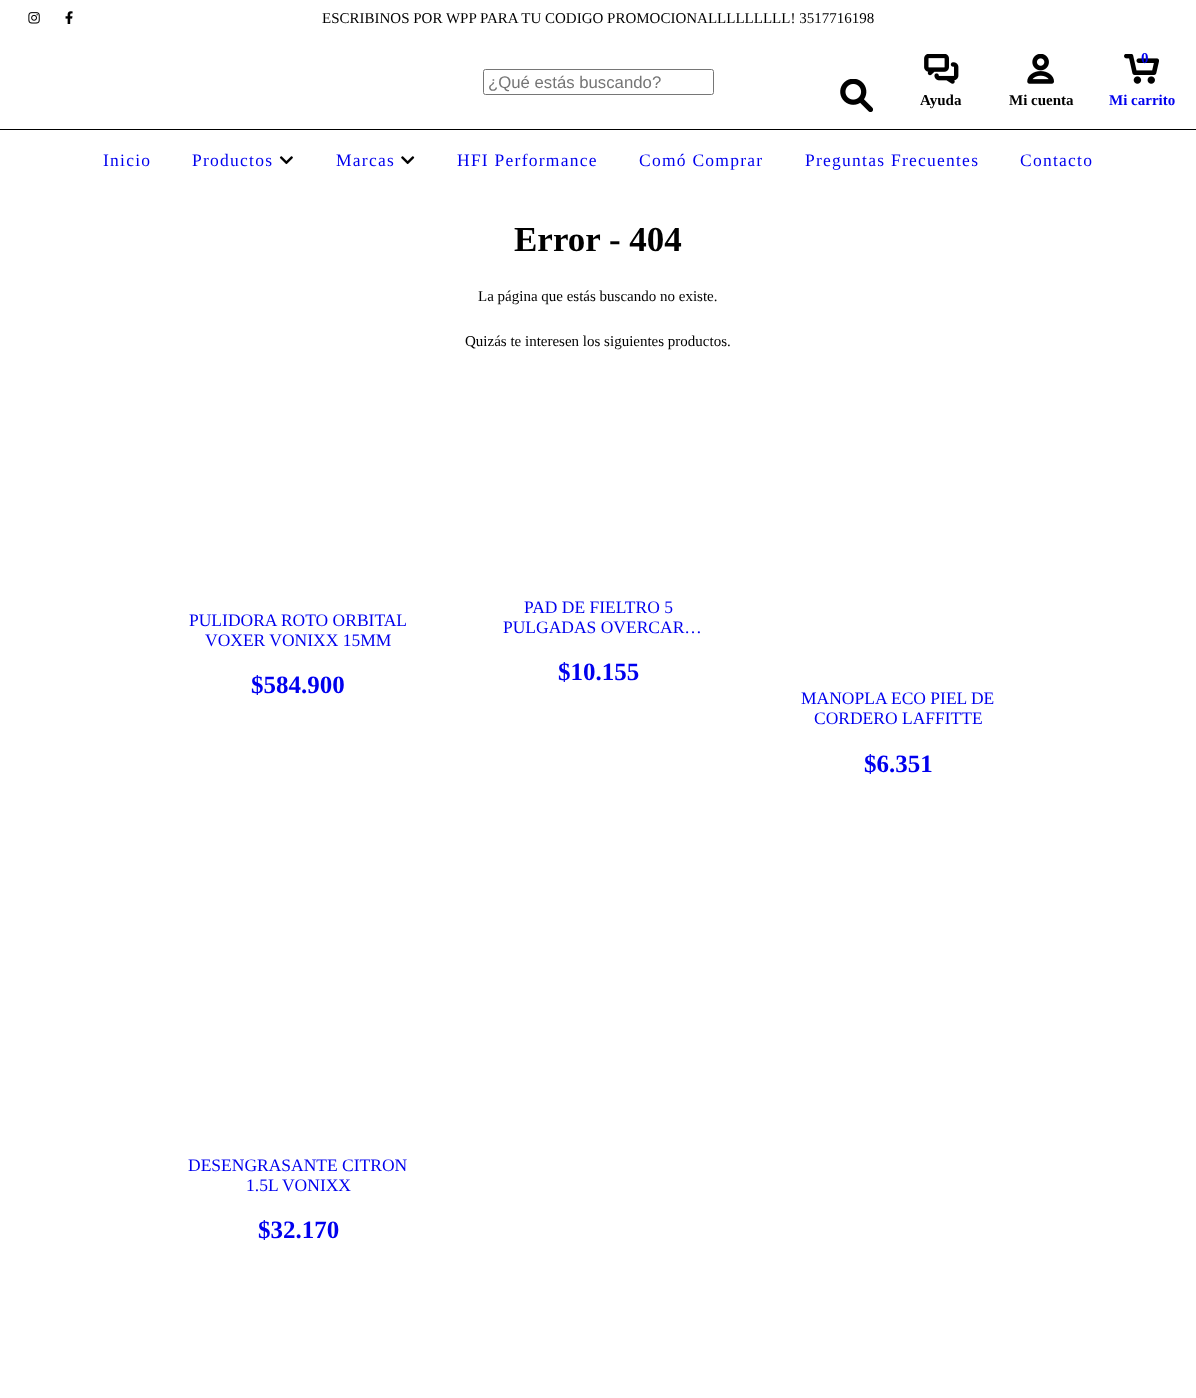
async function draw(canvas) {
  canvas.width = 1196;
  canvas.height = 1398;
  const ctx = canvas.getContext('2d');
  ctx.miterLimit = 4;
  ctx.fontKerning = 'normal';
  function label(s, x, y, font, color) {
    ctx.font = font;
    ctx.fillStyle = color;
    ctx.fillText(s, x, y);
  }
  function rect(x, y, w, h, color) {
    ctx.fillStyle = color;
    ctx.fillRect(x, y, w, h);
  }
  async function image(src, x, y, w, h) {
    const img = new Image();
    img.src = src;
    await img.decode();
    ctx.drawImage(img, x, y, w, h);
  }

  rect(0, 0, 1196, 1398, '#fff');
  await image('assets/img1.png', 28, 12, 12, 12);
  await image('assets/img2.png', 65, 11, 8, 13);
  label('ESCRIBINOS POR WPP PARA TU CODIGO PROMOCIONALLLLLLLLL! 3517716198', 322, 23, '15px Liberation Serif', '#000');
  ctx.beginPath();
  ctx.roundRect(483.5, 69.5, 230, 25, 2);
  ctx.strokeStyle = '#767676';
  ctx.stroke();
  label('¿Qué estás buscando?', 488, 88, '16.75px Liberation Sans', '#757575');
  await image('assets/img3.png', 840, 79, 33, 33);
  await image('assets/img4.png', 924, 54, 35, 30);
  label('Ayuda', 920, 105, 'bold 15px Liberation Serif', '#000');
  await image('assets/img5.png', 1027, 54, 27, 30);
  label('Mi cuenta', 1009, 105, 'bold 15px Liberation Serif', '#000');
  await image('assets/img6.png', 1124, 54, 35, 30);
  label('0', 1141, 63, 'bold 15px Liberation Serif', '#00e');
  label('Mi carrito', 1109, 105, 'bold 15px Liberation Serif', '#00e');
  rect(0, 129, 1196, 1, '#000');
  ctx.letterSpacing = '1.25px';
  label('Inicio', 103, 166, '17.5px Liberation Serif', '#00e');
  label('Productos', 192, 166, '17.5px Liberation Serif', '#00e');
  await image('assets/img7.png', 279, 156, 14, 9);
  label('Marcas', 336, 166, '17.5px Liberation Serif', '#00e');
  await image('assets/img8.png', 401, 156, 14, 9);
  label('HFI Performance', 457, 166, '17.5px Liberation Serif', '#00e');
  label('Comó Comprar', 639, 166, '17.5px Liberation Serif', '#00e');
  label('Preguntas Frecuentes', 805, 166, '17.5px Liberation Serif', '#00e');
  label('Contacto', 1020, 166, '17.5px Liberation Serif', '#00e');
  ctx.letterSpacing = '0px';
  label('Error - 404', 514, 251, 'bold 35px Liberation Serif', '#000');
  label('La página que estás buscando no existe.', 478, 301, '15px Liberation Serif', '#000');
  label('Quizás te interesen los siguientes productos.', 465, 346, '15px Liberation Serif', '#000');
  label('PULIDORA ROTO ORBITAL', 189, 626, '17.5px Liberation Serif', '#00e');
  label('VOXER VONIXX 15MM', 205, 646, '17.5px Liberation Serif', '#00e');
  label('$584.900', 251, 693, 'bold 25px Liberation Serif', '#00e');
  label('PAD DE FIELTRO 5', 524, 613, '17.5px Liberation Serif', '#00e');
  label('PULGADAS OVERCAR…', 503, 633, '17.5px Liberation Serif', '#00e');
  label('$10.155', 558, 680, 'bold 25px Liberation Serif', '#00e');
  label('MANOPLA ECO PIEL DE', 801, 704, '17.5px Liberation Serif', '#00e');
  label('CORDERO LAFFITTE', 814, 724, '17.5px Liberation Serif', '#00e');
  label('$6.351', 864, 772, 'bold 25px Liberation Serif', '#00e');
  label('DESENGRASANTE CITRON', 188, 1171, '17.5px Liberation Serif', '#00e');
  label('1.5L VONIXX', 246, 1191, '17.5px Liberation Serif', '#00e');
  label('$32.170', 258, 1238, 'bold 25px Liberation Serif', '#00e');
}

draw(document.querySelector('canvas'));
